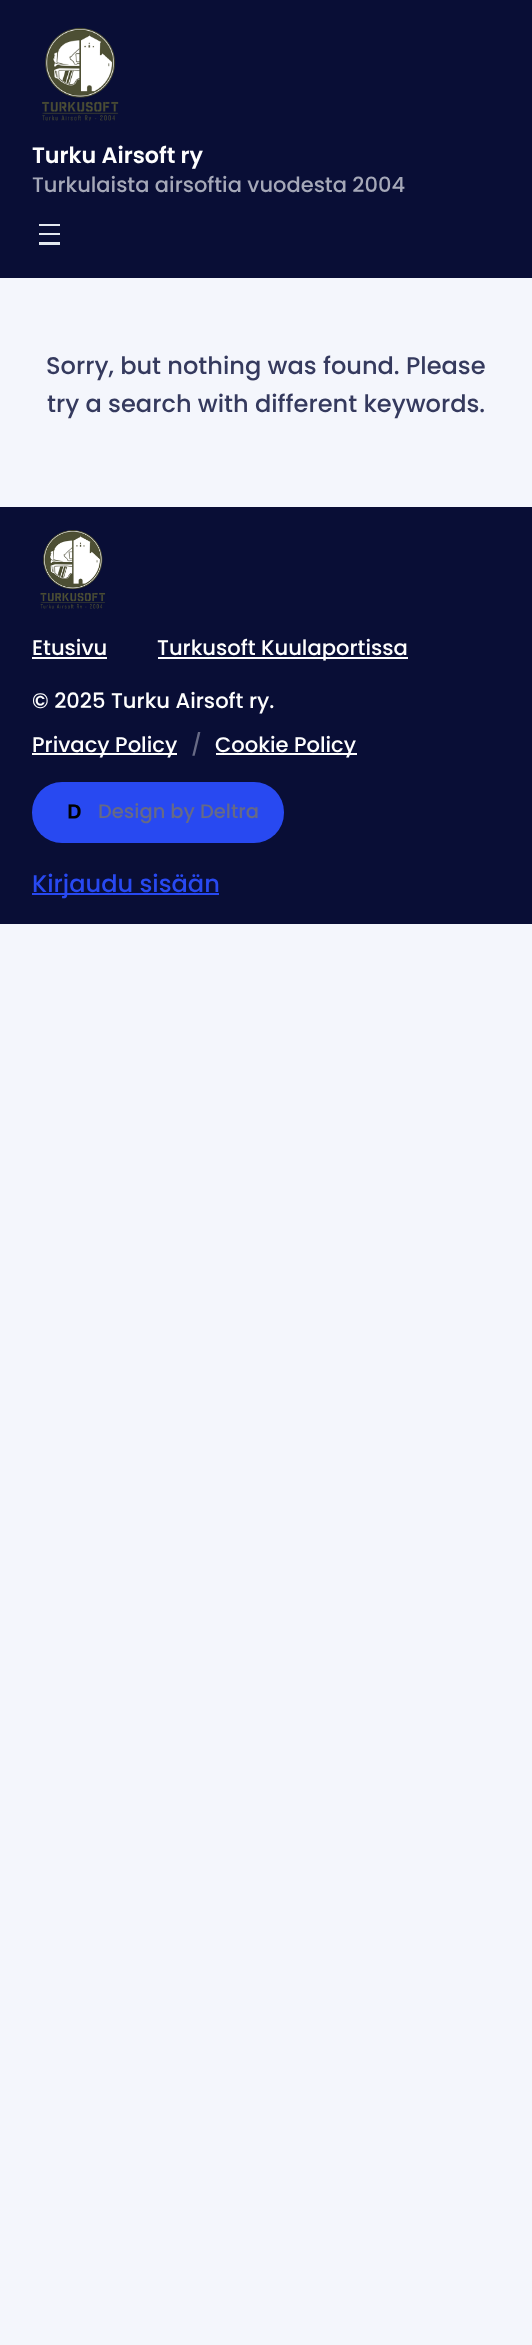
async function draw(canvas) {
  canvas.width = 532;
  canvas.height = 2345;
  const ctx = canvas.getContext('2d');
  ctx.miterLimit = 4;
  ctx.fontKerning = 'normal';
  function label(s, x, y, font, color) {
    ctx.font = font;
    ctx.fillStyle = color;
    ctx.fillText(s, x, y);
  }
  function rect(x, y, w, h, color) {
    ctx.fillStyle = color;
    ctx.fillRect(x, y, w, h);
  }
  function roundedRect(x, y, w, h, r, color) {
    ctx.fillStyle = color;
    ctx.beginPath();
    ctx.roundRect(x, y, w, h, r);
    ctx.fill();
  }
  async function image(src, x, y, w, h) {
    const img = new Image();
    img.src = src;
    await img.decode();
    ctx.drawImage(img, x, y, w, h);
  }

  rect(0, 0, 532, 2345, '#f4f6fc');
  rect(0, 0, 532, 278, '#090e36');
  await image('assets/img1.png', 42, 27, 77, 94);
  label('Turku Airsoft ry', 32, 163, '600 22.25px Poppins', '#fefefe');
  label('Turkulaista airsoftia vuodesta 2004', 32, 192, '500 21px Poppins', '#a5a8b8');
  rect(39, 224, 21, 2, '#e3e8f0');
  rect(39, 233, 21, 2, '#e3e8f0');
  rect(39, 242, 21, 3, '#e3e8f0');
  label('Sorry, but nothing was found. Please', 46, 374, '500 24.1px Poppins', '#353a5e');
  label('try a search with different keywords.', 47, 412, '500 24.1px Poppins', '#353a5e');
  rect(0, 507, 532, 417, '#090e36');
  await image('assets/img2.png', 40, 530, 66, 79);
  label('Etusivu', 32, 655, '500 21.1px Poppins', '#fefefe');
  rect(32, 657, 75, 2, '#fefefe');
  rect(158, 657, 250, 2, '#fefefe');
  label('Turkusoft Kuulaportissa', 157, 655, '500 21.1px Poppins', '#fefefe');
  label('© 2025 Turku Airsoft ry.', 32, 708, '500 21.1px Poppins', '#fefefe');
  rect(32, 753, 145, 2, '#fefefe');
  label('Privacy Policy', 32, 752, '500 21.1px Poppins', '#fefefe');
  label('/', 191, 752, '500 21.1px Poppins', '#676a85');
  rect(216, 753, 141, 2, '#fefefe');
  label('Cookie Policy', 215, 752, '500 21.1px Poppins', '#fefefe');
  roundedRect(32, 782, 252, 61, 30, '#2849f1');
  await image('assets/img3.png', 68, 804, 13, 15);
  label('Design by Deltra', 98, 818, '500 19.5px Poppins', '#676a85');
  rect(32, 893, 187, 2, '#2849f1');
  label('Kirjaudu sisään', 32, 892, '500 24.1px Poppins', '#2849f1');
}

draw(document.querySelector('canvas'));
